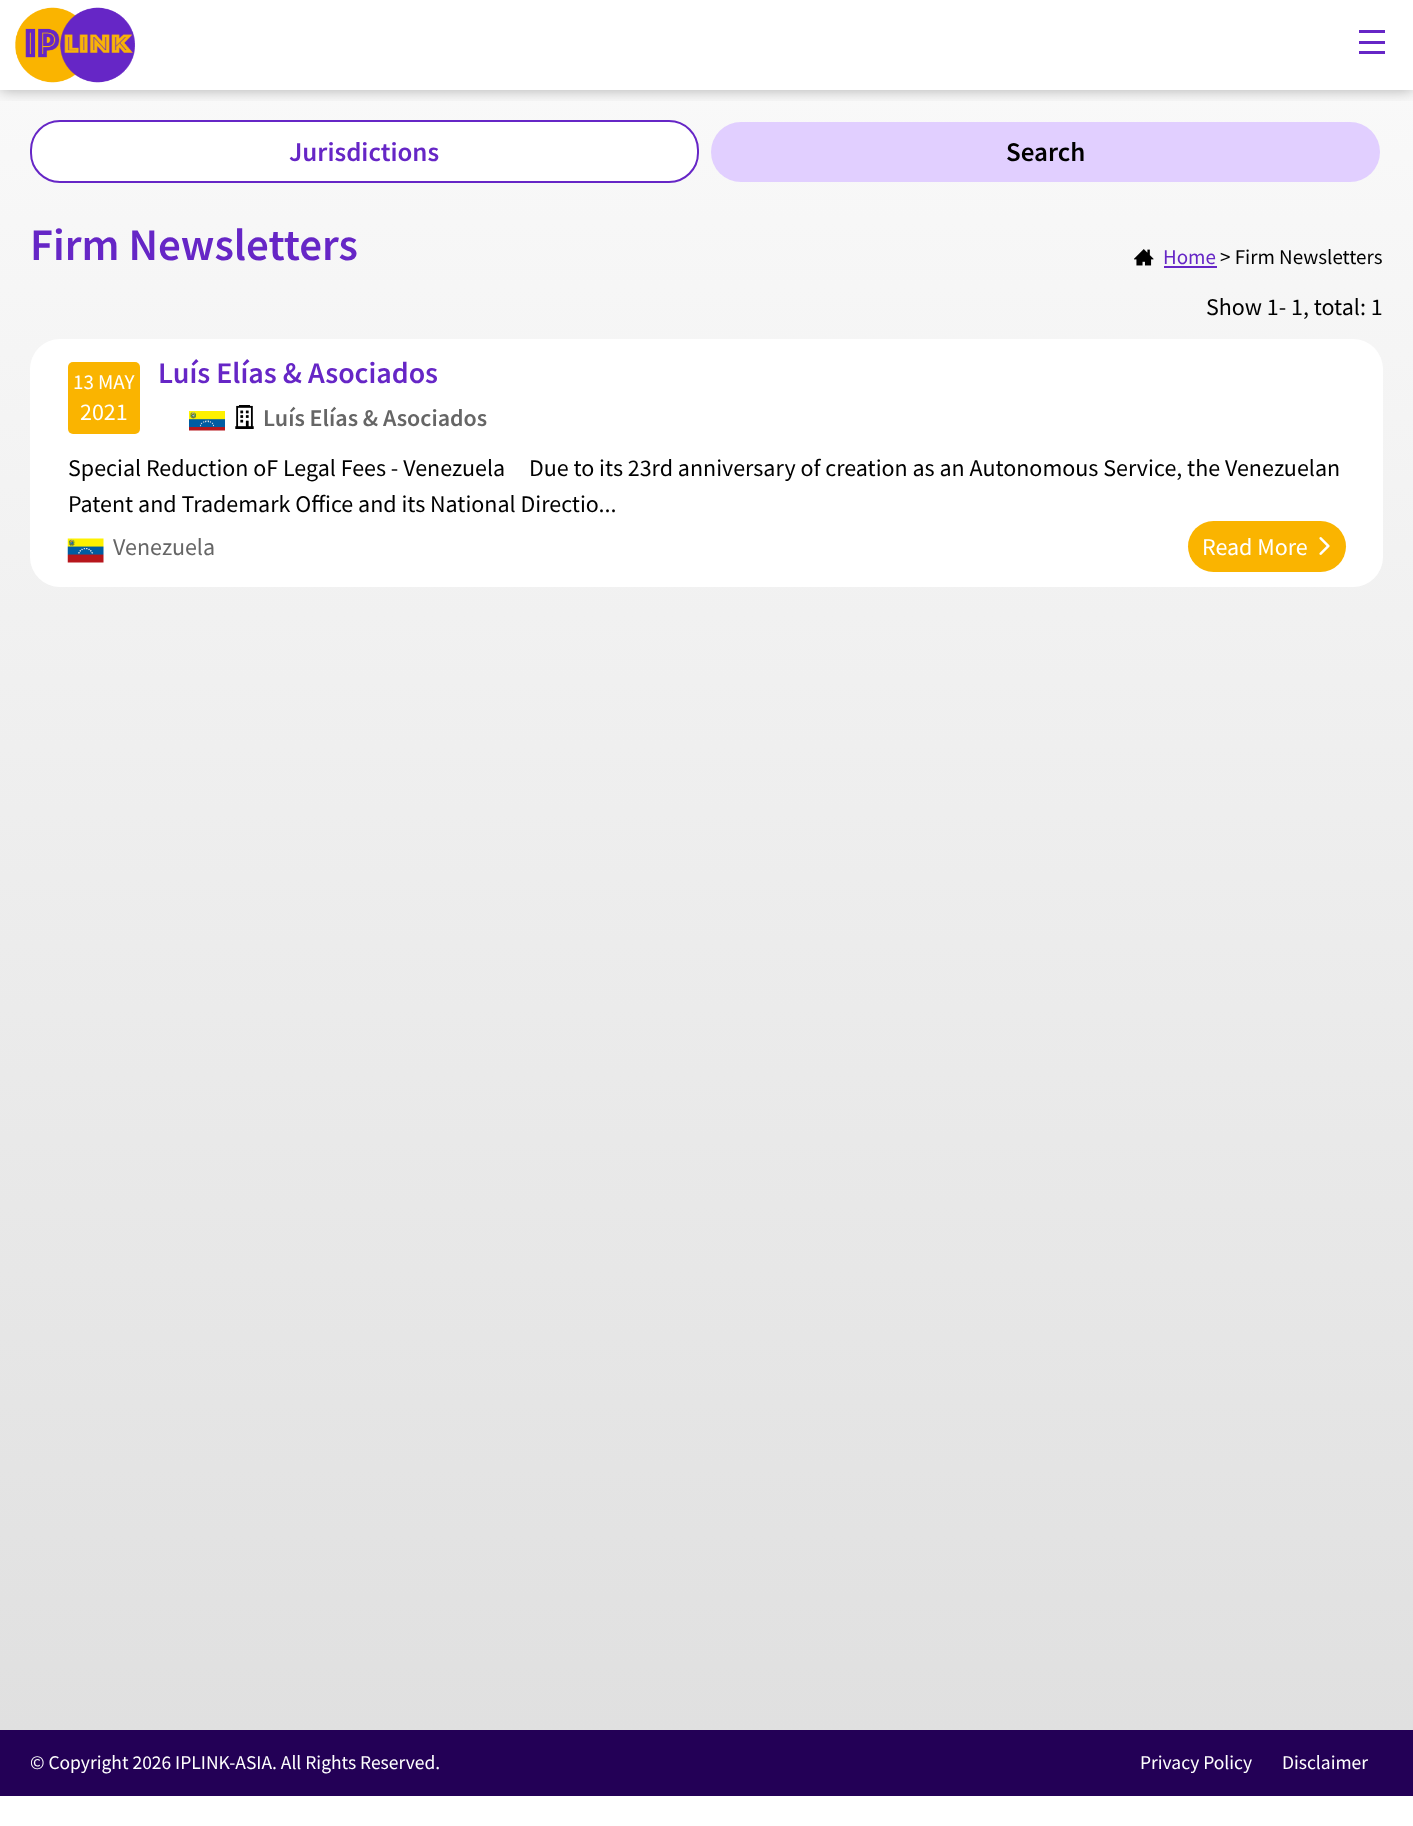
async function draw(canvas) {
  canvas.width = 1413;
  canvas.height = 1826;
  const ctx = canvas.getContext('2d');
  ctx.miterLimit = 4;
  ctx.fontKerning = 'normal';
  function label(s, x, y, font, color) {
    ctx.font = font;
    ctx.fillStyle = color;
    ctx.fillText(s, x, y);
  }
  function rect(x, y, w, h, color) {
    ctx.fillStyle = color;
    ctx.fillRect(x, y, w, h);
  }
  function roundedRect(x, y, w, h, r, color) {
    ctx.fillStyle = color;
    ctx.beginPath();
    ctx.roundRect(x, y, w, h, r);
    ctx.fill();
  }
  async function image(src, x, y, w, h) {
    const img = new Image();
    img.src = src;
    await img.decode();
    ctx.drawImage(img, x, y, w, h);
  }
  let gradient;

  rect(0, 0, 1413, 1826, '#fff');
  gradient = ctx.createLinearGradient(706, 90, 707, 1730);
  gradient.addColorStop(0, '#f9f9f9');
  gradient.addColorStop(1, '#e0e0e0');
  ctx.fillStyle = gradient;
  ctx.fillRect(0, 90, 1413, 1640);
  ctx.save();
  ctx.beginPath();
  ctx.rect(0, 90, 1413, 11);
  ctx.clip();
  ctx.fillStyle = '#0000004d';
  ctx.filter = 'blur(7.5px)';
  ctx.beginPath();
  ctx.rect(0, 0, 1413, 90);
  ctx.fill();
  ctx.filter = 'none';
  ctx.restore();
  await image('assets/img1.png', 15, 7, 120, 76);
  rect(1359, 30, 26, 3, '#6626c6');
  rect(1359, 41, 26, 3, '#6626c6');
  rect(1359, 51, 26, 3, '#6626c6');
  ctx.fillStyle = '#fff';
  ctx.beginPath();
  ctx.roundRect(31, 121, 667, 61, 29);
  ctx.fill();
  ctx.strokeStyle = '#6626c6';
  ctx.lineWidth = 2;
  ctx.stroke();
  label('Jurisdictions', 289, 161, '600 27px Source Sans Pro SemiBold', '#6626c6');
  roundedRect(711, 122, 669, 60, 30, '#e1cfff');
  label('Search', 1006, 161, '600 27px Source Sans Pro SemiBold', '#000');
  label('Firm Newsletters', 30, 260, '600 45px Source Sans Pro SemiBold', '#6626c6');
  await image('assets/img2.png', 1134, 249, 20, 17);
  label('Home', 1163, 264, '21px Source Sans Pro', '#6626c6');
  rect(1164, 266, 53, 2, '#6626c6');
  label('> Firm Newsletters', 1220, 264, '21px Source Sans Pro', '#000');
  label('Show 1- 1, total: 1', 1206, 315, '24px Source Sans Pro', '#000');
  roundedRect(30, 339, 1353, 248, 30, '#fff');
  roundedRect(68, 362, 72, 72, 5, '#fab400');
  label('13 MAY', 73, 389, '21px Source Sans Pro', '#fff');
  label('2021', 80, 420, '24px Source Sans Pro', '#fff');
  label('Luís Elías & Asociados', 158, 383, '600 30px Source Sans Pro SemiBold', '#6626c6');
  await image('assets/img3.png', 189, 411, 36, 20);
  await image('assets/img4.png', 235, 405, 19, 24);
  label('Luís Elías & Asociados', 263, 426, '600 24px Source Sans Pro SemiBold', '#666');
  label('Special Reduction oF Legal Fees - Venezuela', 68, 476, '24px Source Sans Pro', '#000');
  label('Due to its 23rd anniversary of creation as an Autonomous Service, the Venezuelan', 529, 476, '24px Source Sans Pro', '#000');
  label('Patent and Trademark Office and its National Directio...', 68, 512, '24px Source Sans Pro', '#000');
  await image('assets/img5.png', 67, 538, 37, 25);
  label('Venezuela', 113, 555, '24px Source Sans Pro', '#666');
  roundedRect(1188, 521, 158, 51, 25.5, '#fab400');
  label('Read More', 1202, 555, '24px Source Sans Pro', '#fff');
  await image('assets/img6.png', 1319, 537, 11, 18);
  rect(0, 1730, 1413, 66, '#230056');
  label('© Copyright 2026 IPLINK-ASIA. All Rights Reserved.', 30, 1769, '19.5px Source Sans Pro', '#fff');
  label('Privacy Policy', 1140, 1769, '19.5px Source Sans Pro', '#fff');
  label('Disclaimer', 1282, 1769, '19.5px Source Sans Pro', '#fff');
}

draw(document.querySelector('canvas'));
